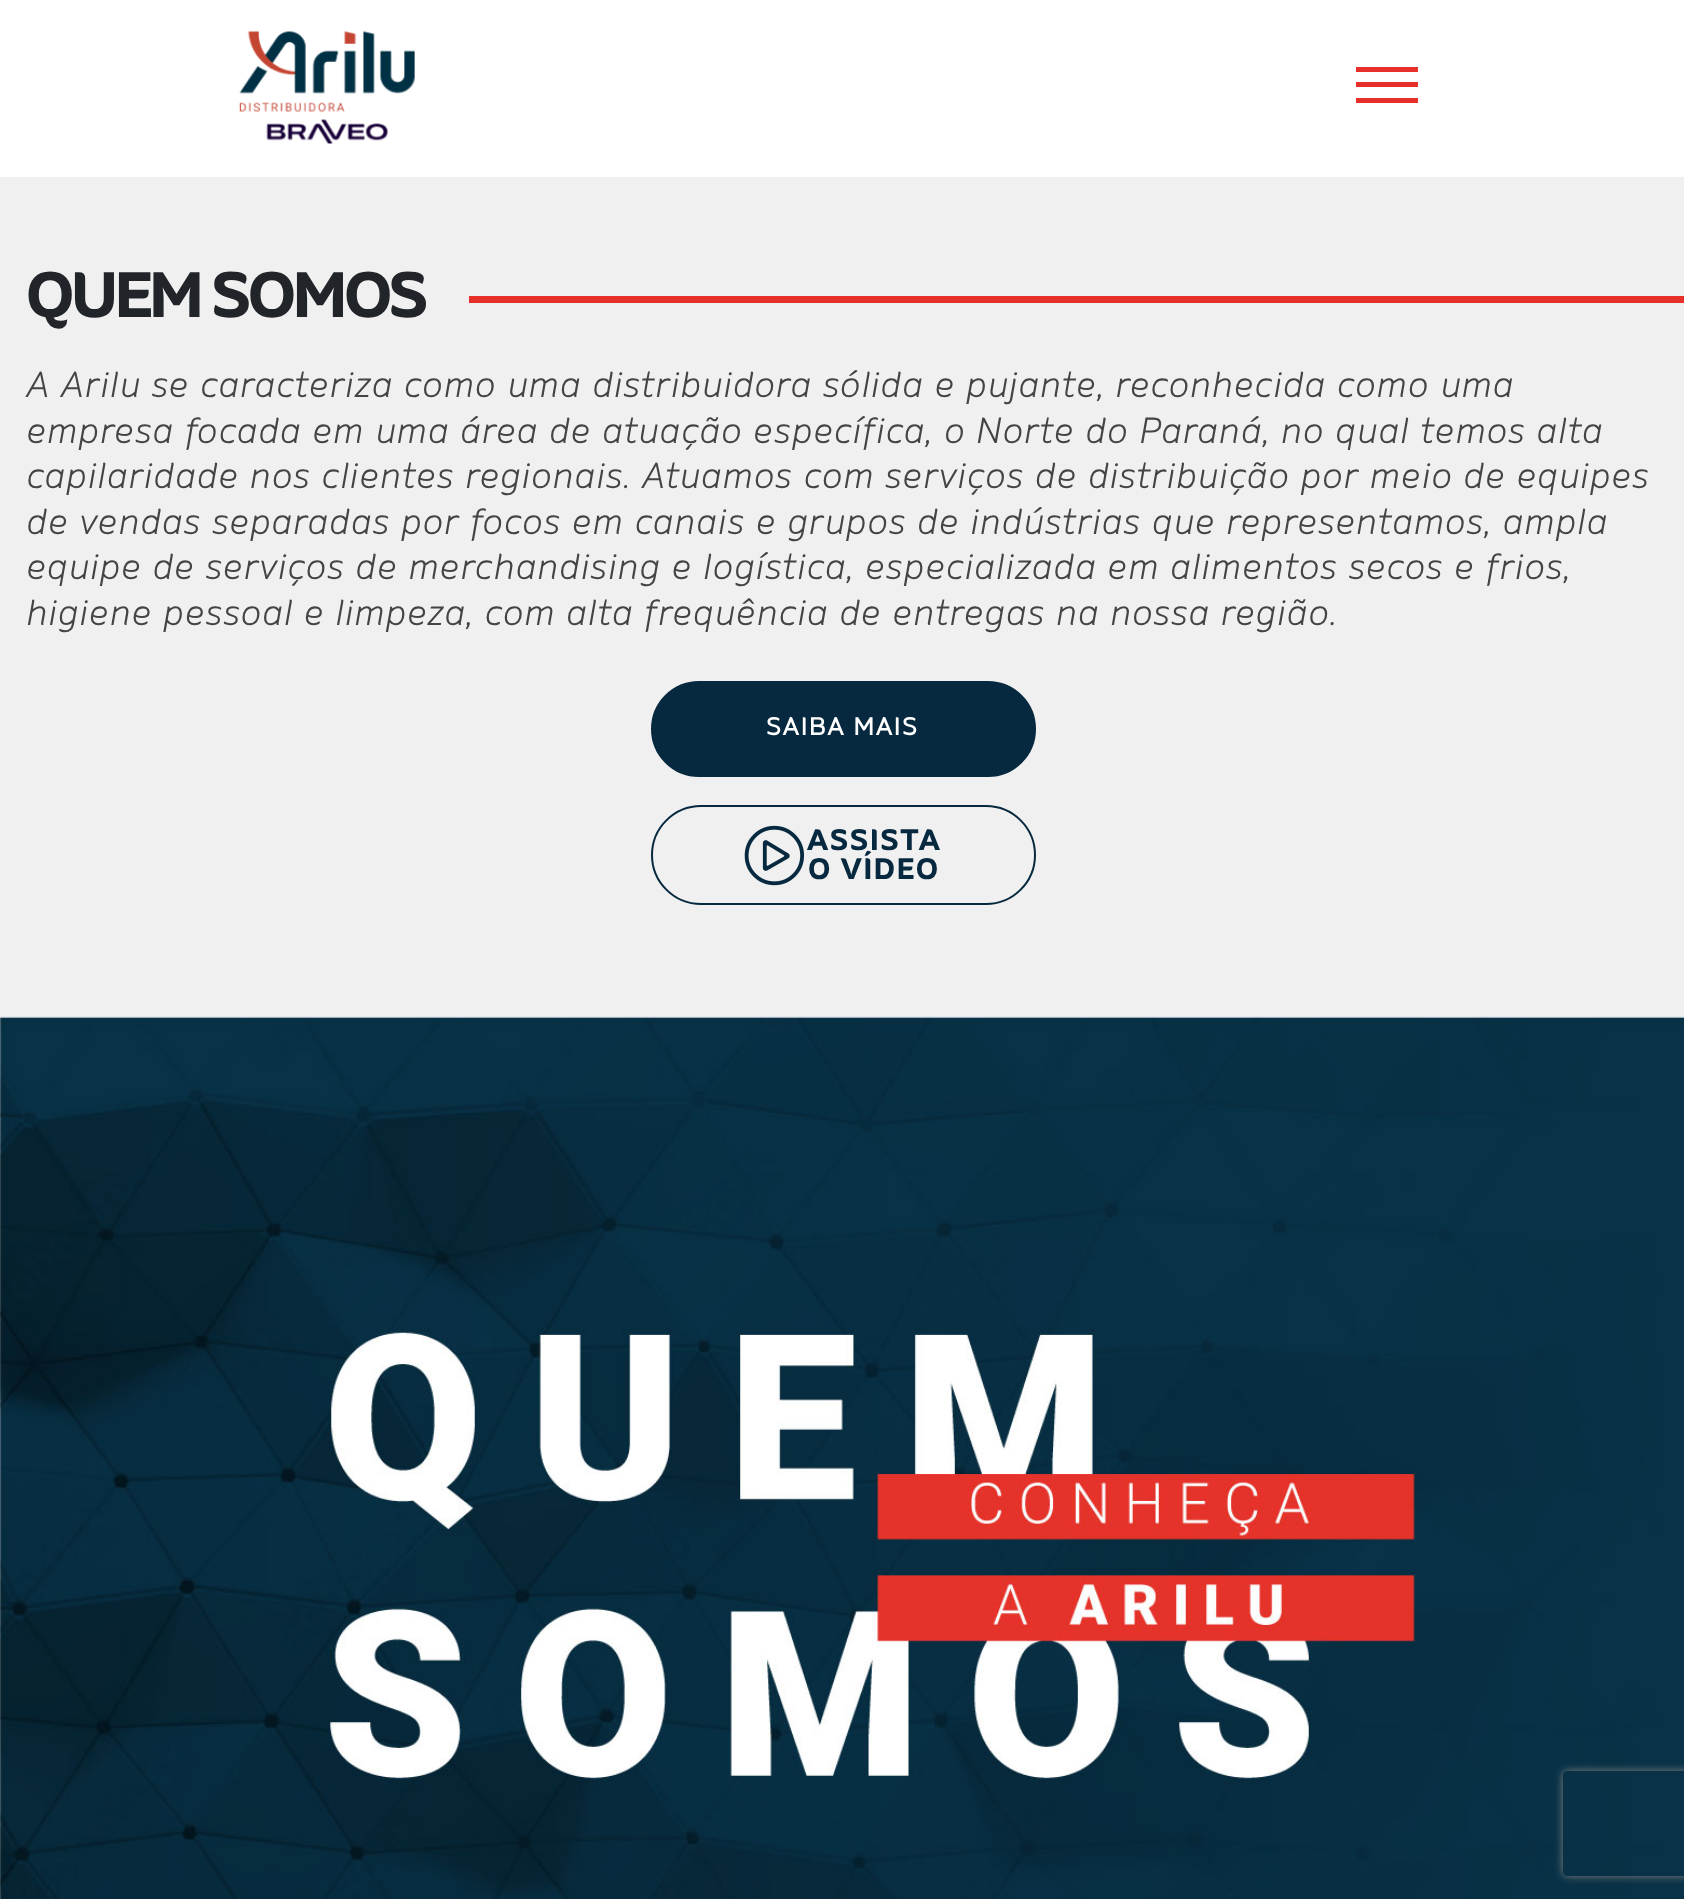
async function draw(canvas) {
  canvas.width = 1684;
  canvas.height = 1899;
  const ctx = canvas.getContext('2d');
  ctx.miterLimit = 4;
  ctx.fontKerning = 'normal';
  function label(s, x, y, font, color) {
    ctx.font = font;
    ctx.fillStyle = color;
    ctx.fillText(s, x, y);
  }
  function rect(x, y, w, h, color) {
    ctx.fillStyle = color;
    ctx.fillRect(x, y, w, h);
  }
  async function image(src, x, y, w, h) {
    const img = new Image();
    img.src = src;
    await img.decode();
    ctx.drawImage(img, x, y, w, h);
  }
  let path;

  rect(0, 0, 1684, 1899, '#fff');
  await image('assets/img1.png', 239, 31, 176, 113);
  rect(1356, 82, 62, 5, '#e7302a');
  rect(1356, 67, 62, 5, '#e7302a');
  rect(1356, 98, 62, 5, '#e7302a');
  rect(0, 177, 1684, 840, '#f0f0f0');
  ctx.letterSpacing = '-3.25px';
  label('QUEM SOMOS', 26, 317, '63.75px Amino', '#212529');
  rect(469, 296, 1215, 7, '#e7302a');
  ctx.letterSpacing = '1.75px';
  label('A Arilu se caracteriza como uma distribuidora sólida e pujante, reconhecida como uma', 26, 397, 'bold 35px Amino', '#444');
  label('empresa focada em uma área de atuação específica, o Norte do Paraná, no qual temos alta', 26, 443, 'bold 35px Amino', '#444');
  label('capilaridade nos clientes regionais. Atuamos com serviços de distribuição por meio de equipes', 26, 488, 'bold 35px Amino', '#444');
  label('de vendas separadas por focos em canais e grupos de indústrias que representamos, ampla', 26, 534, 'bold 35px Amino', '#444');
  label('equipe de serviços de merchandising e logística, especializada em alimentos secos e frios,', 26, 579, 'bold 35px Amino', '#444');
  label('higiene pessoal e limpeza, com alta frequência de entregas na nossa região.', 26, 625, 'bold 35px Amino', '#444');
  ctx.fillStyle = '#06293f';
  ctx.beginPath();
  ctx.roundRect(652, 682, 383, 94, 47);
  ctx.fill();
  ctx.strokeStyle = '#06293f';
  ctx.lineWidth = 2;
  ctx.stroke();
  label('SAIBA MAIS', 766, 735, 'bold 24.5px "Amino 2"', '#fff');
  ctx.beginPath();
  ctx.roundRect(652, 806, 383, 98, 49);
  ctx.stroke();
  await image('assets/img2.png', 744, 825, 61, 61);
  label('ASSISTA', 807, 850, '29.5px Amino', '#06293f');
  label('O VÍDEO', 808, 879, '29.5px Amino', '#06293f');
  await image('assets/img3.png', 0, 1016, 1684, 883);
  ctx.save();
  path = new Path2D('M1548 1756H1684V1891H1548ZM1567 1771H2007C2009 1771 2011 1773 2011 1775V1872C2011 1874 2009 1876 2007 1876H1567C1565 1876 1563 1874 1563 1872V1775C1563 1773 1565 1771 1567 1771Z');
  ctx.clip(path, 'evenodd');
  ctx.fillStyle = '#808080';
  ctx.filter = 'blur(4.5px)';
  ctx.beginPath();
  ctx.roundRect(1563, 1771, 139, 105, 4);
  ctx.fill();
  ctx.filter = 'none';
  ctx.restore();
}

draw(document.querySelector('canvas'));
